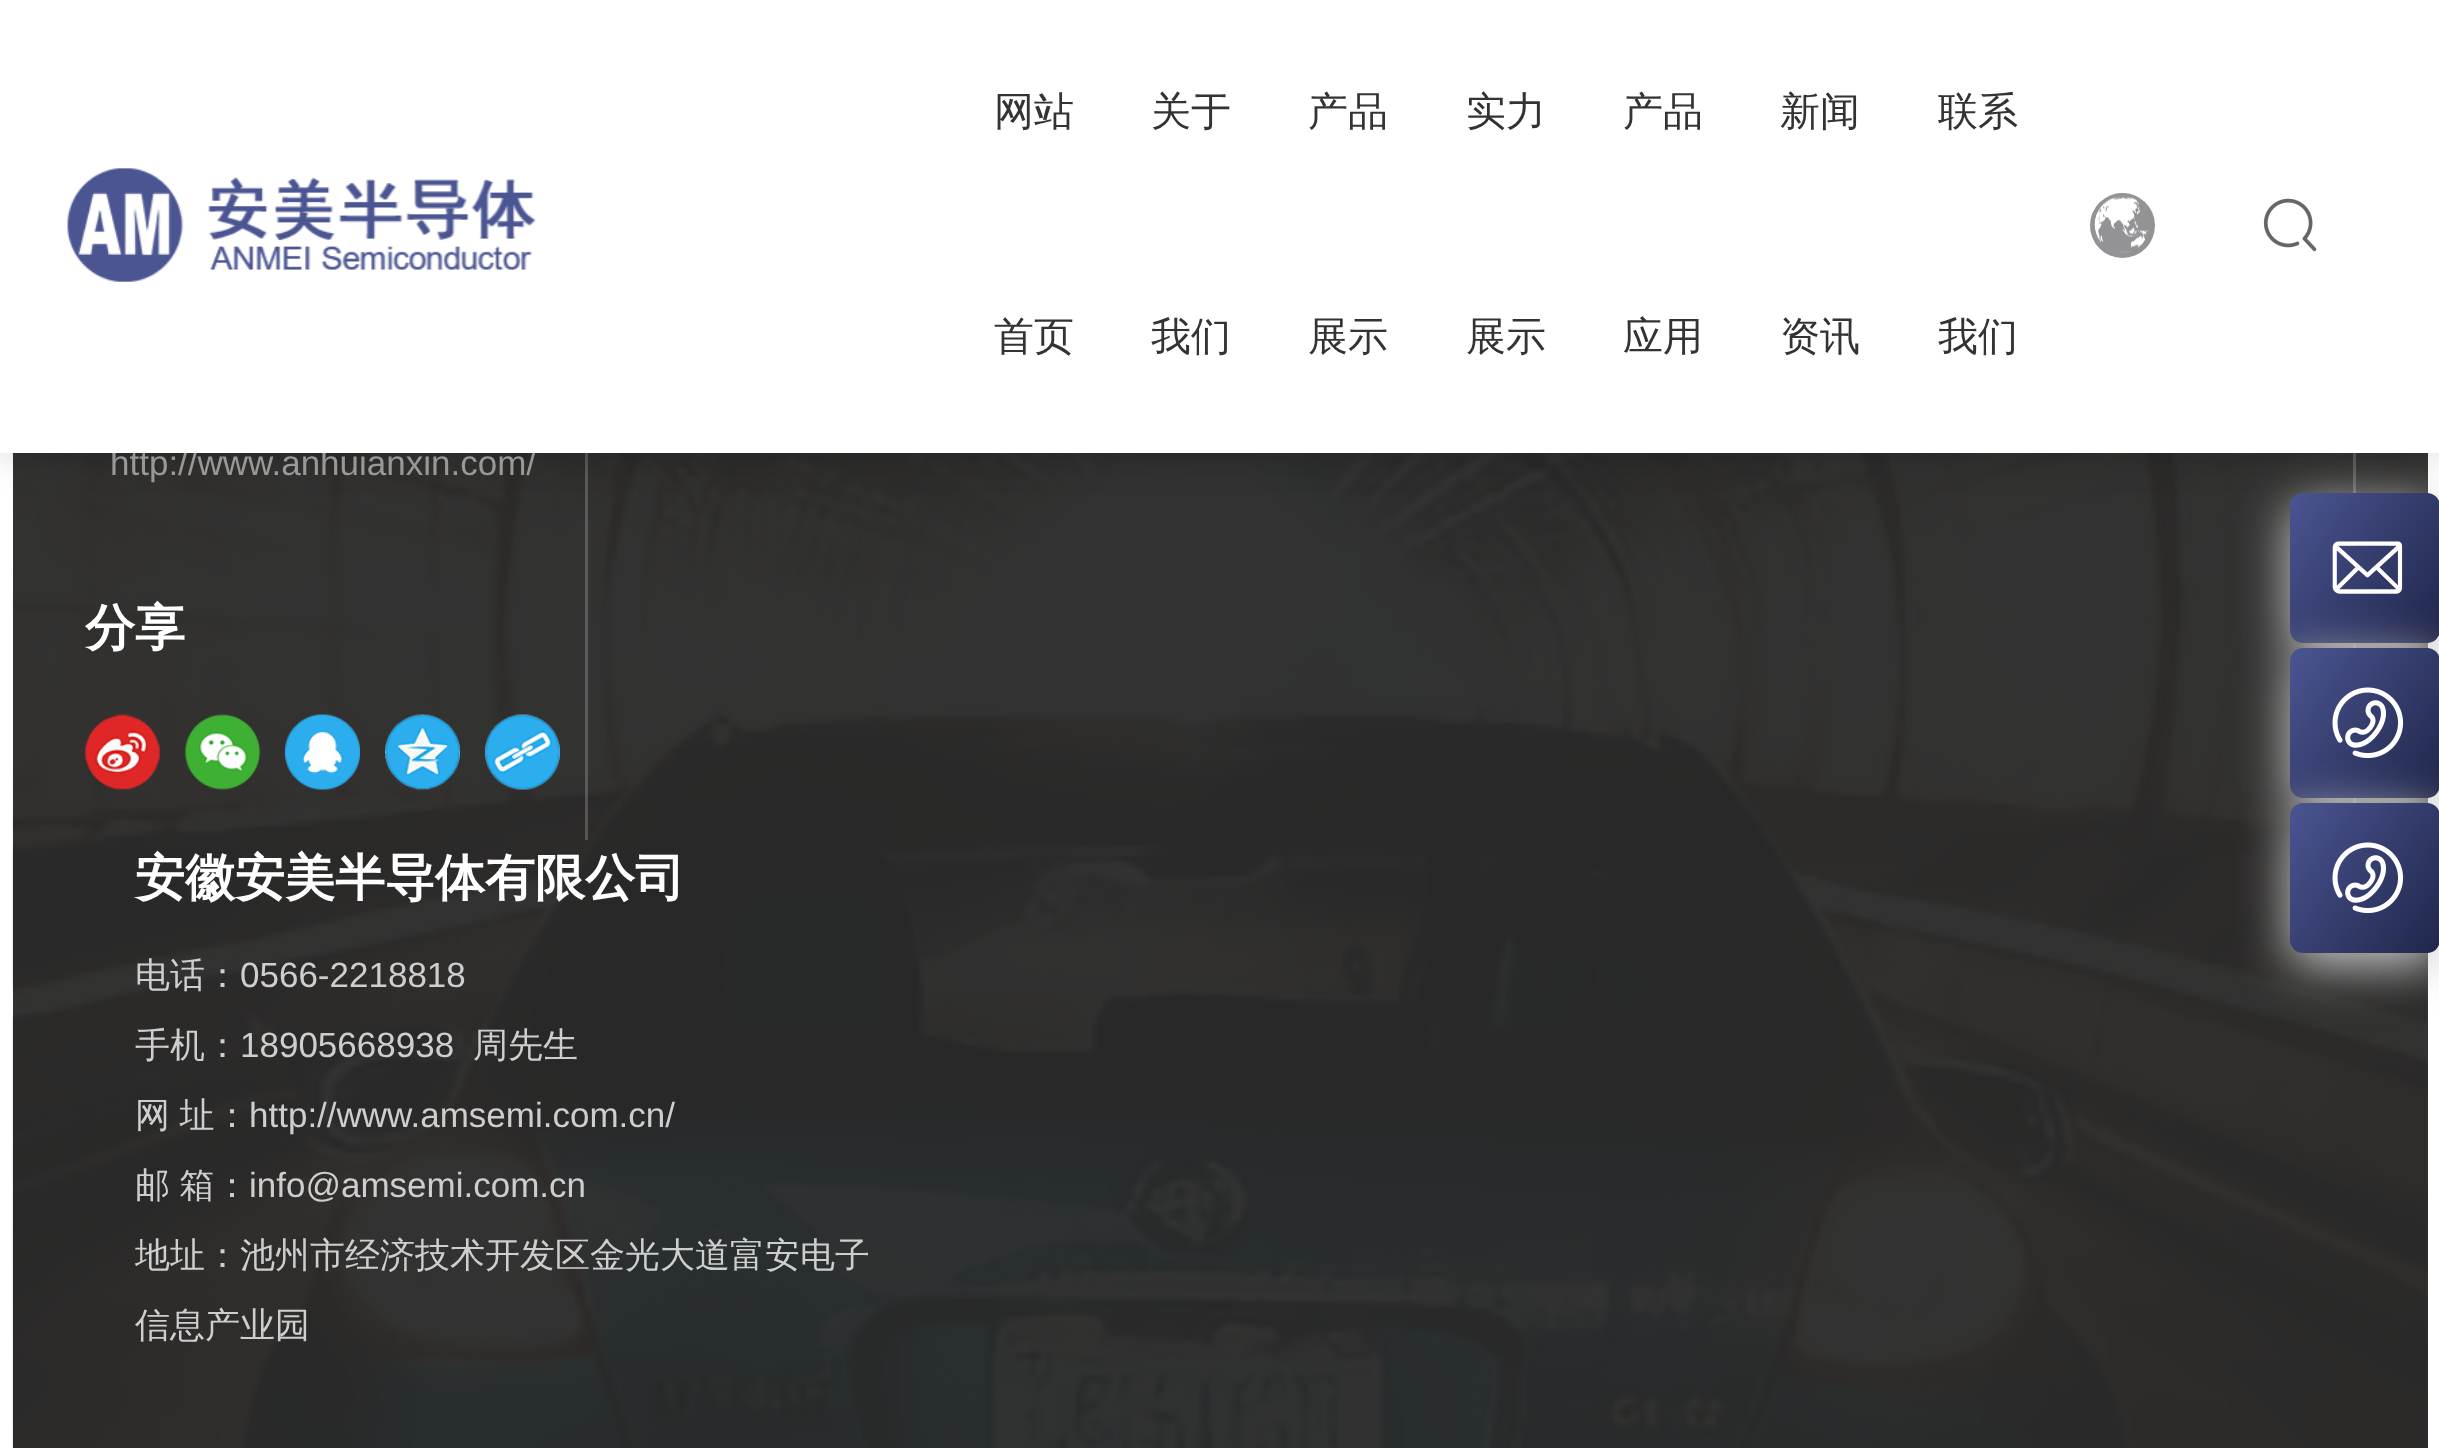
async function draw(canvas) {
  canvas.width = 2439;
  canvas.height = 1448;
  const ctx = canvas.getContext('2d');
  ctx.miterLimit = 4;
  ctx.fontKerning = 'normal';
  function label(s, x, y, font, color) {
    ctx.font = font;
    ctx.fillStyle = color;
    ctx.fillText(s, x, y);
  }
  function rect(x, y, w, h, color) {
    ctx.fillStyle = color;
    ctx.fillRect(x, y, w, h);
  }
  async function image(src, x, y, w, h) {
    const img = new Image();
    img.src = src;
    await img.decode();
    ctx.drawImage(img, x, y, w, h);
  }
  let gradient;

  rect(0, 0, 2439, 1448, '#fff');
  rect(13, 453, 2415, 995, '#333');
  await image('assets/img4.png', 12, 453, 2416, 995);
  rect(2353, 453, 3, 350, '#ffffff33');
  rect(585, 453, 3, 387, '#ffffff33');
  ctx.fillStyle = '#ccc';
  ctx.filter = 'blur(25px)';
  ctx.beginPath();
  ctx.roundRect(2290, 505, 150, 150, 13);
  ctx.fill();
  ctx.filter = 'none';
  gradient = ctx.createLinearGradient(2279, 508, 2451, 627);
  gradient.addColorStop(0, '#4b5592');
  gradient.addColorStop(1, '#20264a');
  ctx.fillStyle = gradient;
  ctx.beginPath();
  ctx.roundRect(2290, 493, 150, 150, 13);
  ctx.fill();
  ctx.fillStyle = '#00000033';
  ctx.filter = 'blur(19px)';
  ctx.beginPath();
  ctx.rect(0, 0, 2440, 453);
  ctx.fill();
  ctx.filter = 'none';
  label('http://www.anhuianxin.com/', 110, 475, '35px Liberation Sans', '#989897');
  rect(0, 0, 2439, 453, '#fff');
  await image('assets/img1.png', 67, 168, 470, 114);
  label('网站', 994, 125, '500 40px WenQuanYi Zen Hei', '#333');
  label('首页', 994, 350, '500 40px WenQuanYi Zen Hei', '#333');
  label('关于', 1151, 125, '500 40px WenQuanYi Zen Hei', '#333');
  label('我们', 1151, 350, '500 40px WenQuanYi Zen Hei', '#333');
  label('产品', 1308, 125, '500 40px WenQuanYi Zen Hei', '#333');
  label('展示', 1308, 350, '500 40px WenQuanYi Zen Hei', '#333');
  label('实力', 1466, 125, '500 40px WenQuanYi Zen Hei', '#333');
  label('展示', 1466, 350, '500 40px WenQuanYi Zen Hei', '#333');
  label('产品', 1623, 125, '500 40px WenQuanYi Zen Hei', '#333');
  label('应用', 1623, 350, '500 40px WenQuanYi Zen Hei', '#333');
  label('新闻', 1780, 125, '500 40px WenQuanYi Zen Hei', '#333');
  label('资讯', 1780, 350, '500 40px WenQuanYi Zen Hei', '#333');
  label('联系', 1938, 125, '500 40px WenQuanYi Zen Hei', '#333');
  label('我们', 1938, 350, '500 40px WenQuanYi Zen Hei', '#333');
  ctx.fillStyle = '#939395';
  ctx.beginPath();
  ctx.arc(2122.5, 225.5, 32.5, 0, 2 * Math.PI);
  ctx.fill();
  await image('assets/img2.png', 2094, 196, 55, 57);
  await image('assets/img3.png', 2263, 198, 54, 54);
  label('分享', 85, 645, 'bold 50px WenQuanYi Zen Hei', '#fff');
  await image('assets/img5.png', 85, 714, 75, 76);
  await image('assets/img6.png', 185, 714, 75, 76);
  await image('assets/img7.png', 285, 714, 75, 76);
  await image('assets/img8.png', 385, 714, 75, 76);
  await image('assets/img9.png', 485, 714, 75, 76);
  label('安徽安美半导体有限公司', 135, 895, 'bold 50px WenQuanYi Zen Hei', '#fff');
  label('电话：', 135, 987, '500 35px WenQuanYi Zen Hei', '#cecece');
  label('0566-2218818', 240, 987, '35px Liberation Sans', '#cecece');
  label('手机：', 135, 1057, '500 35px WenQuanYi Zen Hei', '#cecece');
  label('18905668938', 240, 1057, '35px Liberation Sans', '#cecece');
  label('周先生', 473, 1057, '500 35px WenQuanYi Zen Hei', '#cecece');
  ctx.wordSpacing = '-1px';
  label('网 址：', 135, 1127, '500 35px WenQuanYi Zen Hei', '#cecece');
  ctx.wordSpacing = '0px';
  label('http://www.amsemi.com.cn/', 249, 1127, '35px Liberation Sans', '#cecece');
  ctx.wordSpacing = '-1px';
  label('邮 箱：', 135, 1197, '500 35px WenQuanYi Zen Hei', '#cecece');
  ctx.wordSpacing = '0px';
  label('info@amsemi.com.cn', 249, 1197, '35px Liberation Sans', '#cecece');
  label('地址：池州市经济技术开发区金光大道富安电子', 135, 1267, '500 35px WenQuanYi Zen Hei', '#cecece');
  label('信息产业园', 135, 1337, '500 35px WenQuanYi Zen Hei', '#cecece');
  await image('assets/img10.png', 2332, 541, 71, 53);
  ctx.fillStyle = '#ccc';
  ctx.filter = 'blur(25px)';
  ctx.beginPath();
  ctx.roundRect(2290, 660, 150, 150, 13);
  ctx.fill();
  ctx.filter = 'none';
  gradient = ctx.createLinearGradient(2279, 663, 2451, 782);
  gradient.addColorStop(0, '#4b5592');
  gradient.addColorStop(1, '#20264a');
  ctx.fillStyle = gradient;
  ctx.beginPath();
  ctx.roundRect(2290, 648, 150, 150, 13);
  ctx.fill();
  await image('assets/img11.png', 2332, 687, 72, 72);
  ctx.fillStyle = '#ccc';
  ctx.filter = 'blur(25px)';
  ctx.beginPath();
  ctx.roundRect(2290, 815, 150, 150, 13);
  ctx.fill();
  ctx.filter = 'none';
  gradient = ctx.createLinearGradient(2279, 818, 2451, 937);
  gradient.addColorStop(0, '#4b5592');
  gradient.addColorStop(1, '#20264a');
  ctx.fillStyle = gradient;
  ctx.beginPath();
  ctx.roundRect(2290, 803, 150, 150, 13);
  ctx.fill();
  await image('assets/img11.png', 2332, 842, 72, 72);
}

draw(document.querySelector('canvas'));
